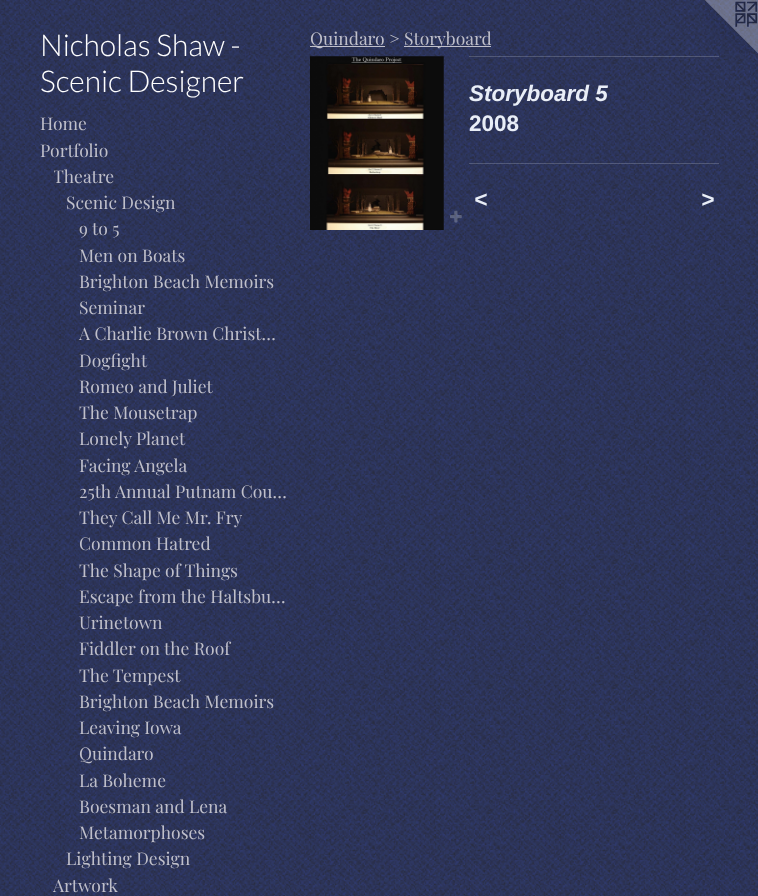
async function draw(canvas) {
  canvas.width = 758;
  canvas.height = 896;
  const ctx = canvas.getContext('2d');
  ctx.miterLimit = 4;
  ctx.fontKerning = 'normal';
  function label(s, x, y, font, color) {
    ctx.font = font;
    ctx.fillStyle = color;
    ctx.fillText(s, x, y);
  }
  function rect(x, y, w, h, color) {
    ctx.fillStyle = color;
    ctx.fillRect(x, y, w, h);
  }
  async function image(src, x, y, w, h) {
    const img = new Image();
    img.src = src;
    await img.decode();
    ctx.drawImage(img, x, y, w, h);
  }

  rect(0, 0, 758, 896, '#fff');
  await image('assets/img1.png', 0, 0, 758, 896);
  label('Nicholas Shaw -', 40, 56, '300 30px Lato', '#fff');
  label('Scenic Designer', 40, 92, '300 30px Lato', '#fff');
  label('Home', 40, 130, '17.5px Playfair Display', '#bfbfca');
  label('Portfolio', 40, 157, '17.5px Playfair Display', '#bfbfca');
  ctx.save();
  ctx.beginPath();
  ctx.rect(54, 163, 236, 26);
  ctx.clip();
  label('Theatre', 53, 183, '17.5px Playfair Display', '#bfbfca');
  ctx.restore();
  label('Scenic Design', 66, 209, '17.5px Playfair Display', '#bfbfca');
  label('9 to 5', 79, 235, '17.5px Playfair Display', '#bfbfca');
  label('Men on Boats', 79, 262, '17.5px Playfair Display', '#bfbfca');
  label('Brighton Beach Memoirs', 79, 288, '17.5px Playfair Display', '#bfbfca');
  label('Seminar', 79, 314, '17.5px Playfair Display', '#bfbfca');
  label('A Charlie Brown Christ…', 79, 340, '17.5px Playfair Display', '#bfbfca');
  label('Dogfight', 79, 367, '17.5px Playfair Display', '#bfbfca');
  label('Romeo and Juliet', 79, 393, '17.5px Playfair Display', '#bfbfca');
  label('The Mousetrap', 79, 419, '17.5px Playfair Display', '#bfbfca');
  label('Lonely Planet', 79, 445, '17.5px Playfair Display', '#bfbfca');
  label('Facing Angela', 79, 472, '17.5px Playfair Display', '#bfbfca');
  label('25th Annual Putnam Cou…', 79, 498, '17.5px Playfair Display', '#bfbfca');
  label('They Call Me Mr. Fry', 79, 524, '17.5px Playfair Display', '#bfbfca');
  label('Common Hatred', 79, 550, '17.5px Playfair Display', '#bfbfca');
  label('The Shape of Things', 79, 577, '17.5px Playfair Display', '#bfbfca');
  label('Escape from the Haltsbu…', 79, 603, '17.5px Playfair Display', '#bfbfca');
  label('Urinetown', 79, 629, '17.5px Playfair Display', '#bfbfca');
  label('Fiddler on the Roof', 79, 655, '17.5px Playfair Display', '#bfbfca');
  label('The Tempest', 79, 682, '17.5px Playfair Display', '#bfbfca');
  label('Brighton Beach Memoirs', 79, 708, '17.5px Playfair Display', '#bfbfca');
  label('Leaving Iowa', 79, 734, '17.5px Playfair Display', '#bfbfca');
  label('Quindaro', 79, 760, '17.5px Playfair Display', '#bfbfca');
  label('La Boheme', 79, 787, '17.5px Playfair Display', '#bfbfca');
  label('Boesman and Lena', 79, 813, '17.5px Playfair Display', '#bfbfca');
  label('Metamorphoses', 79, 839, '17.5px Playfair Display', '#bfbfca');
  label('Lighting Design', 66, 865, '17.5px Playfair Display', '#bfbfca');
  label('Artwork', 53, 892, '17.5px Playfair Display', '#bfbfca');
  rect(310, 46, 75, 1, '#bfbfca');
  label('Quindaro >', 310, 45, '17.5px Playfair Display', '#bfbfca');
  rect(404, 46, 87, 1, '#bfbfca');
  label('Storyboard', 404, 45, '17.5px Playfair Display', '#bfbfca');
  await image('assets/img2.png', 310, 56, 134, 174);
  await image('assets/img3.png', 450, 210, 12, 13);
  rect(469, 56, 250, 1, '#e9eef733');
  label('Storyboard 5', 469, 101, 'italic bold 22.5px Liberation Sans', '#e9eef7');
  label('2008', 469, 131, 'bold 22.5px Liberation Sans', '#e9eef7');
  rect(469, 163, 250, 1, '#e9eef733');
  ctx.letterSpacing = '1px';
  label('<', 474, 207, 'italic bold 22.5px Liberation Sans', '#e9eef7');
  label('>', 701, 207, 'italic bold 22.5px Liberation Sans', '#e9eef7');
  await image('assets/img4.png', 705, 0, 53, 53);
}

draw(document.querySelector('canvas'));
